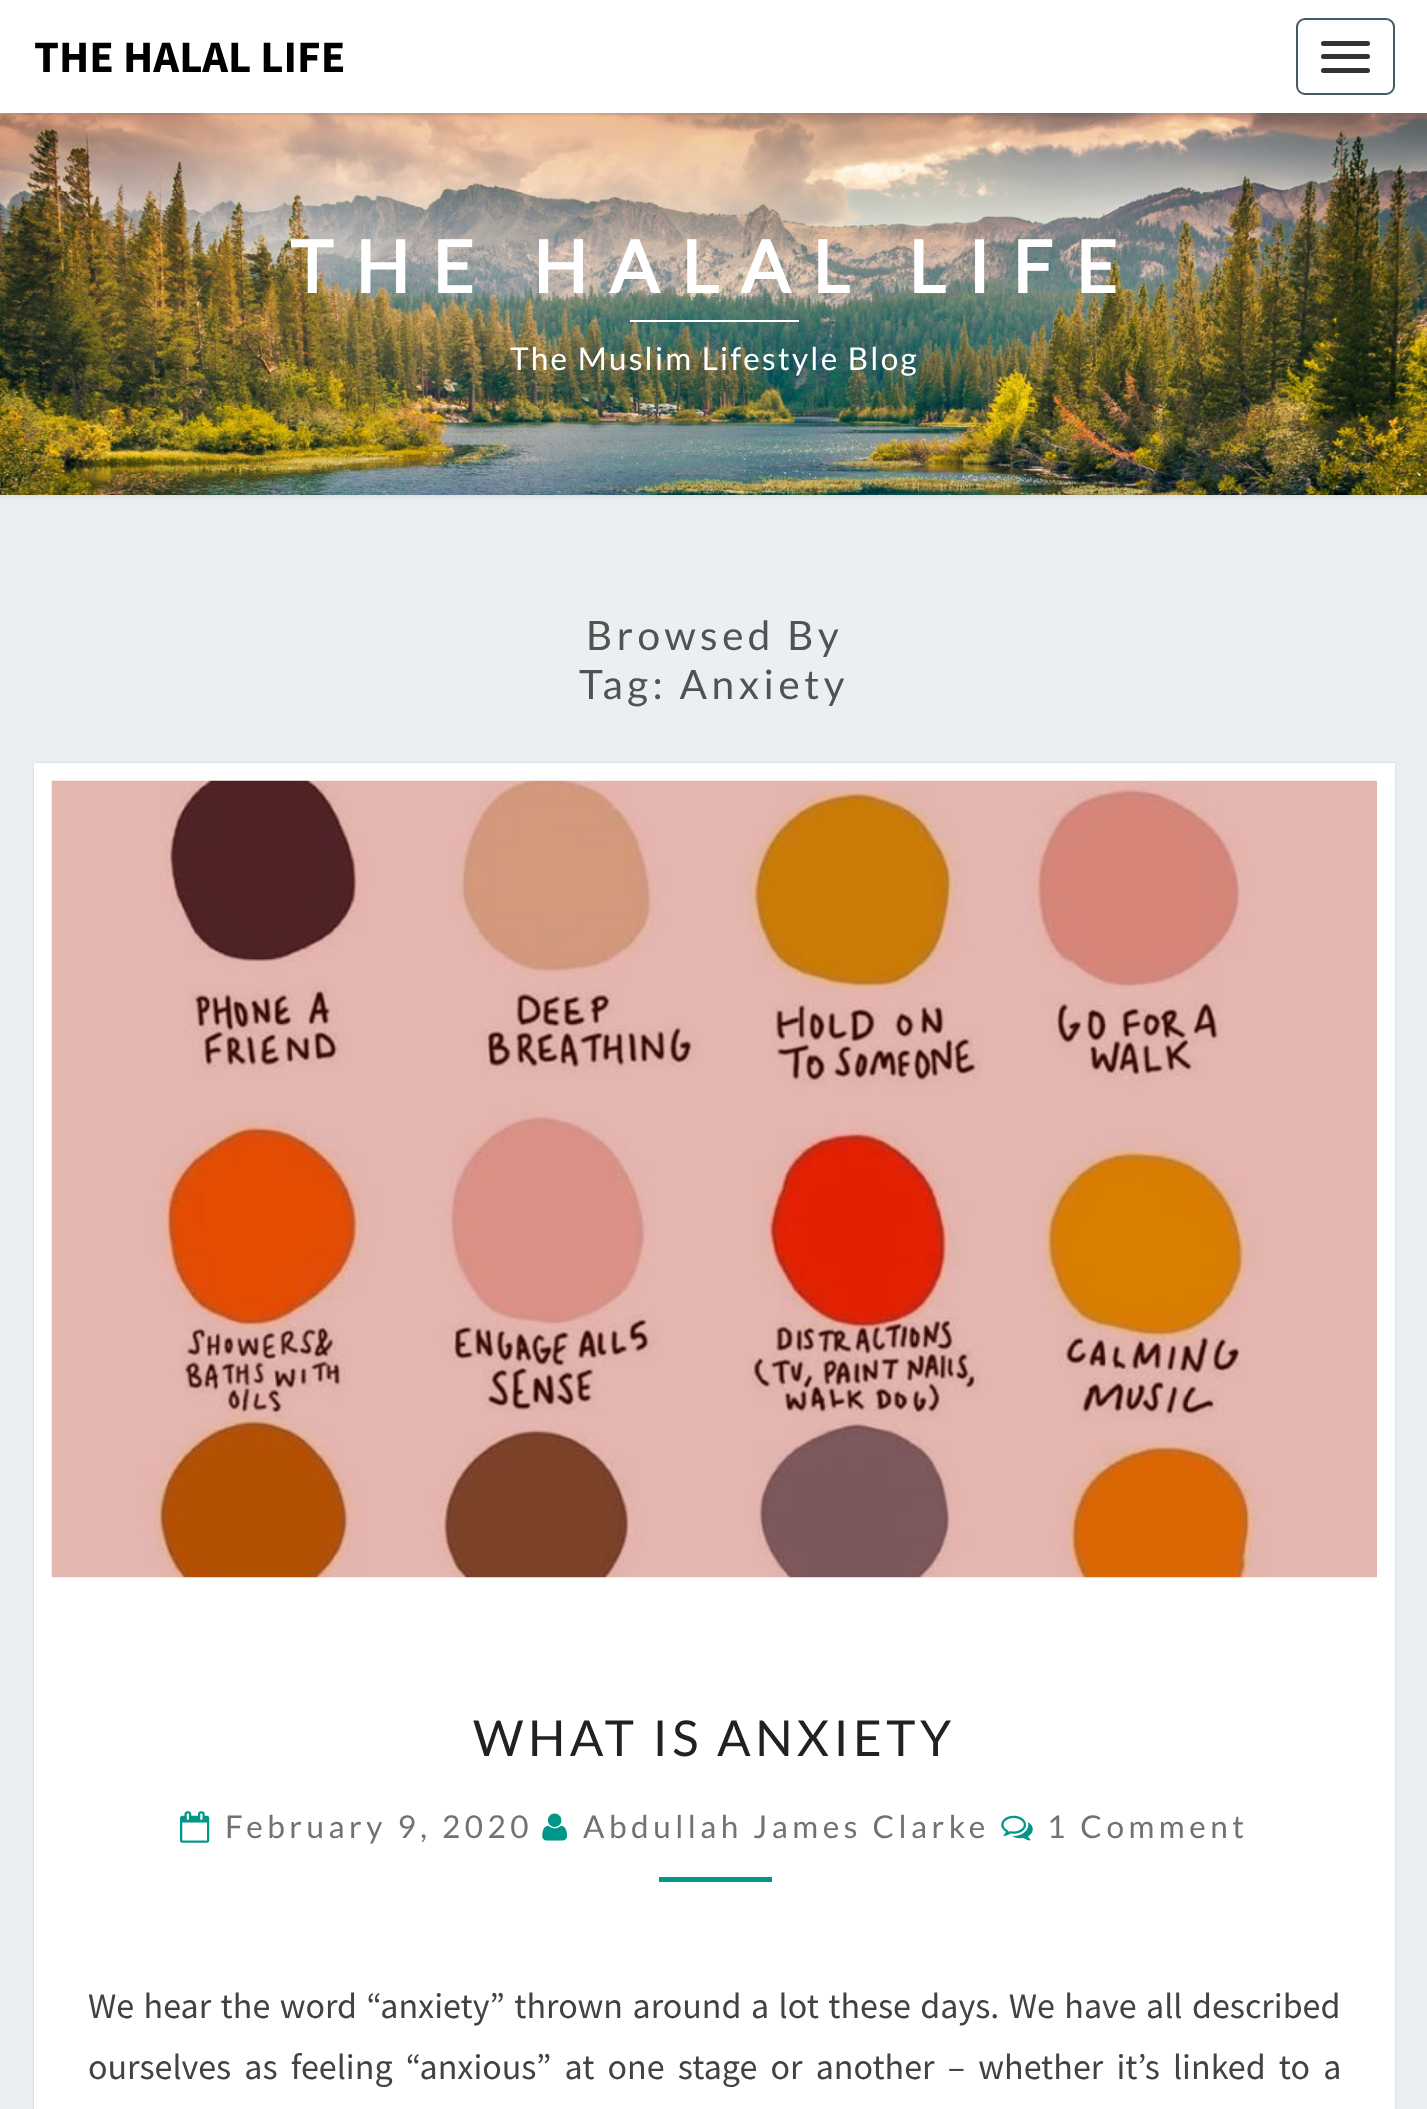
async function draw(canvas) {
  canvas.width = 1427;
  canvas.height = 2109;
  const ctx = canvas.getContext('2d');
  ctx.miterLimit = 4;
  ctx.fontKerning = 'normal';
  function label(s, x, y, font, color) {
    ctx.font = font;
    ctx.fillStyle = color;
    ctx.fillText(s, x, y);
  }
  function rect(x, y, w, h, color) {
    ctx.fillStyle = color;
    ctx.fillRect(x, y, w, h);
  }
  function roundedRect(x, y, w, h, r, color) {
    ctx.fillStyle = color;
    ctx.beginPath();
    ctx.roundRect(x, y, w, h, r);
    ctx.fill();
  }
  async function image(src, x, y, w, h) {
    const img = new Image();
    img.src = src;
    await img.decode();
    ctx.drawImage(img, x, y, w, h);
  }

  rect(0, 0, 1427, 2109, '#eceff1');
  ctx.fillStyle = '#b6b6b64d';
  ctx.filter = 'blur(2px)';
  ctx.beginPath();
  ctx.rect(-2, 110, 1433, 387);
  ctx.fill();
  ctx.filter = 'none';
  await image('assets/img1.png', 0, 113, 1427, 382);
  ctx.fillStyle = '#64646433';
  ctx.filter = 'blur(1px)';
  ctx.beginPath();
  ctx.rect(0, 2, 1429, 113);
  ctx.fill();
  ctx.filter = 'none';
  rect(0, 0, 1427, 113, '#fff');
  label('THE HALAL LIFE', 34, 72, 'bold 45px Source Sans Pro', '#000');
  ctx.beginPath();
  ctx.roundRect(1297, 19, 97, 75, 8);
  ctx.strokeStyle = '#455a64';
  ctx.lineWidth = 2;
  ctx.stroke();
  roundedRect(1321, 41, 49, 5, 2.5, '#333');
  roundedRect(1321, 54, 49, 5, 2.5, '#333');
  roundedRect(1321, 68, 49, 5, 2.5, '#333');
  ctx.letterSpacing = '22.5px';
  label('THE HALAL LIFE', 290, 293, 'bold 72px Lato', '#fff');
  rect(630, 320, 169, 2, '#fff');
  ctx.letterSpacing = '2.25px';
  label('The Muslim Lifestyle Blog', 510, 370, '31.5px Lato', '#fff');
  ctx.letterSpacing = '4.5px';
  label('Browsed By', 586, 650, '40.5px Lato', '#525252');
  label('Tag: Anxiety', 579, 699, '40.5px Lato', '#525252');
  ctx.fillStyle = '#00000026';
  ctx.filter = 'blur(1px)';
  ctx.beginPath();
  ctx.rect(34, 763, 1361, 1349);
  ctx.fill();
  ctx.filter = 'none';
  rect(34, 763, 1361, 1346, '#fff');
  await image('assets/img2.png', 51, 780, 1326, 798);
  label('WHAT IS ANXIETY', 473, 1756, '49.5px Lato', '#212121');
  await image('assets/img3.png', 180, 1811, 30, 32);
  label('February 9, 2020', 225, 1838, '31.5px Lato', '#727272');
  await image('assets/img4.png', 542, 1813, 25, 28);
  label('Abdullah James Clarke', 583, 1838, '31.5px Lato', '#727272');
  await image('assets/img5.png', 1001, 1815, 32, 26);
  label('1 Comment', 1047, 1838, '31.5px Lato', '#727272');
  rect(659, 1877, 113, 5, '#009688');
  ctx.letterSpacing = '0px';
  ctx.wordSpacing = '2.25px';
  label('We hear the word “anxiety” thrown around a lot these days. We have all described', 88, 2018, '36px Source Sans Pro', '#424242');
  ctx.wordSpacing = '6px';
  label('ourselves as feeling “anxious” at one stage or another – whether it’s linked to a', 88, 2079, '36px Source Sans Pro', '#424242');
}

draw(document.querySelector('canvas'));
